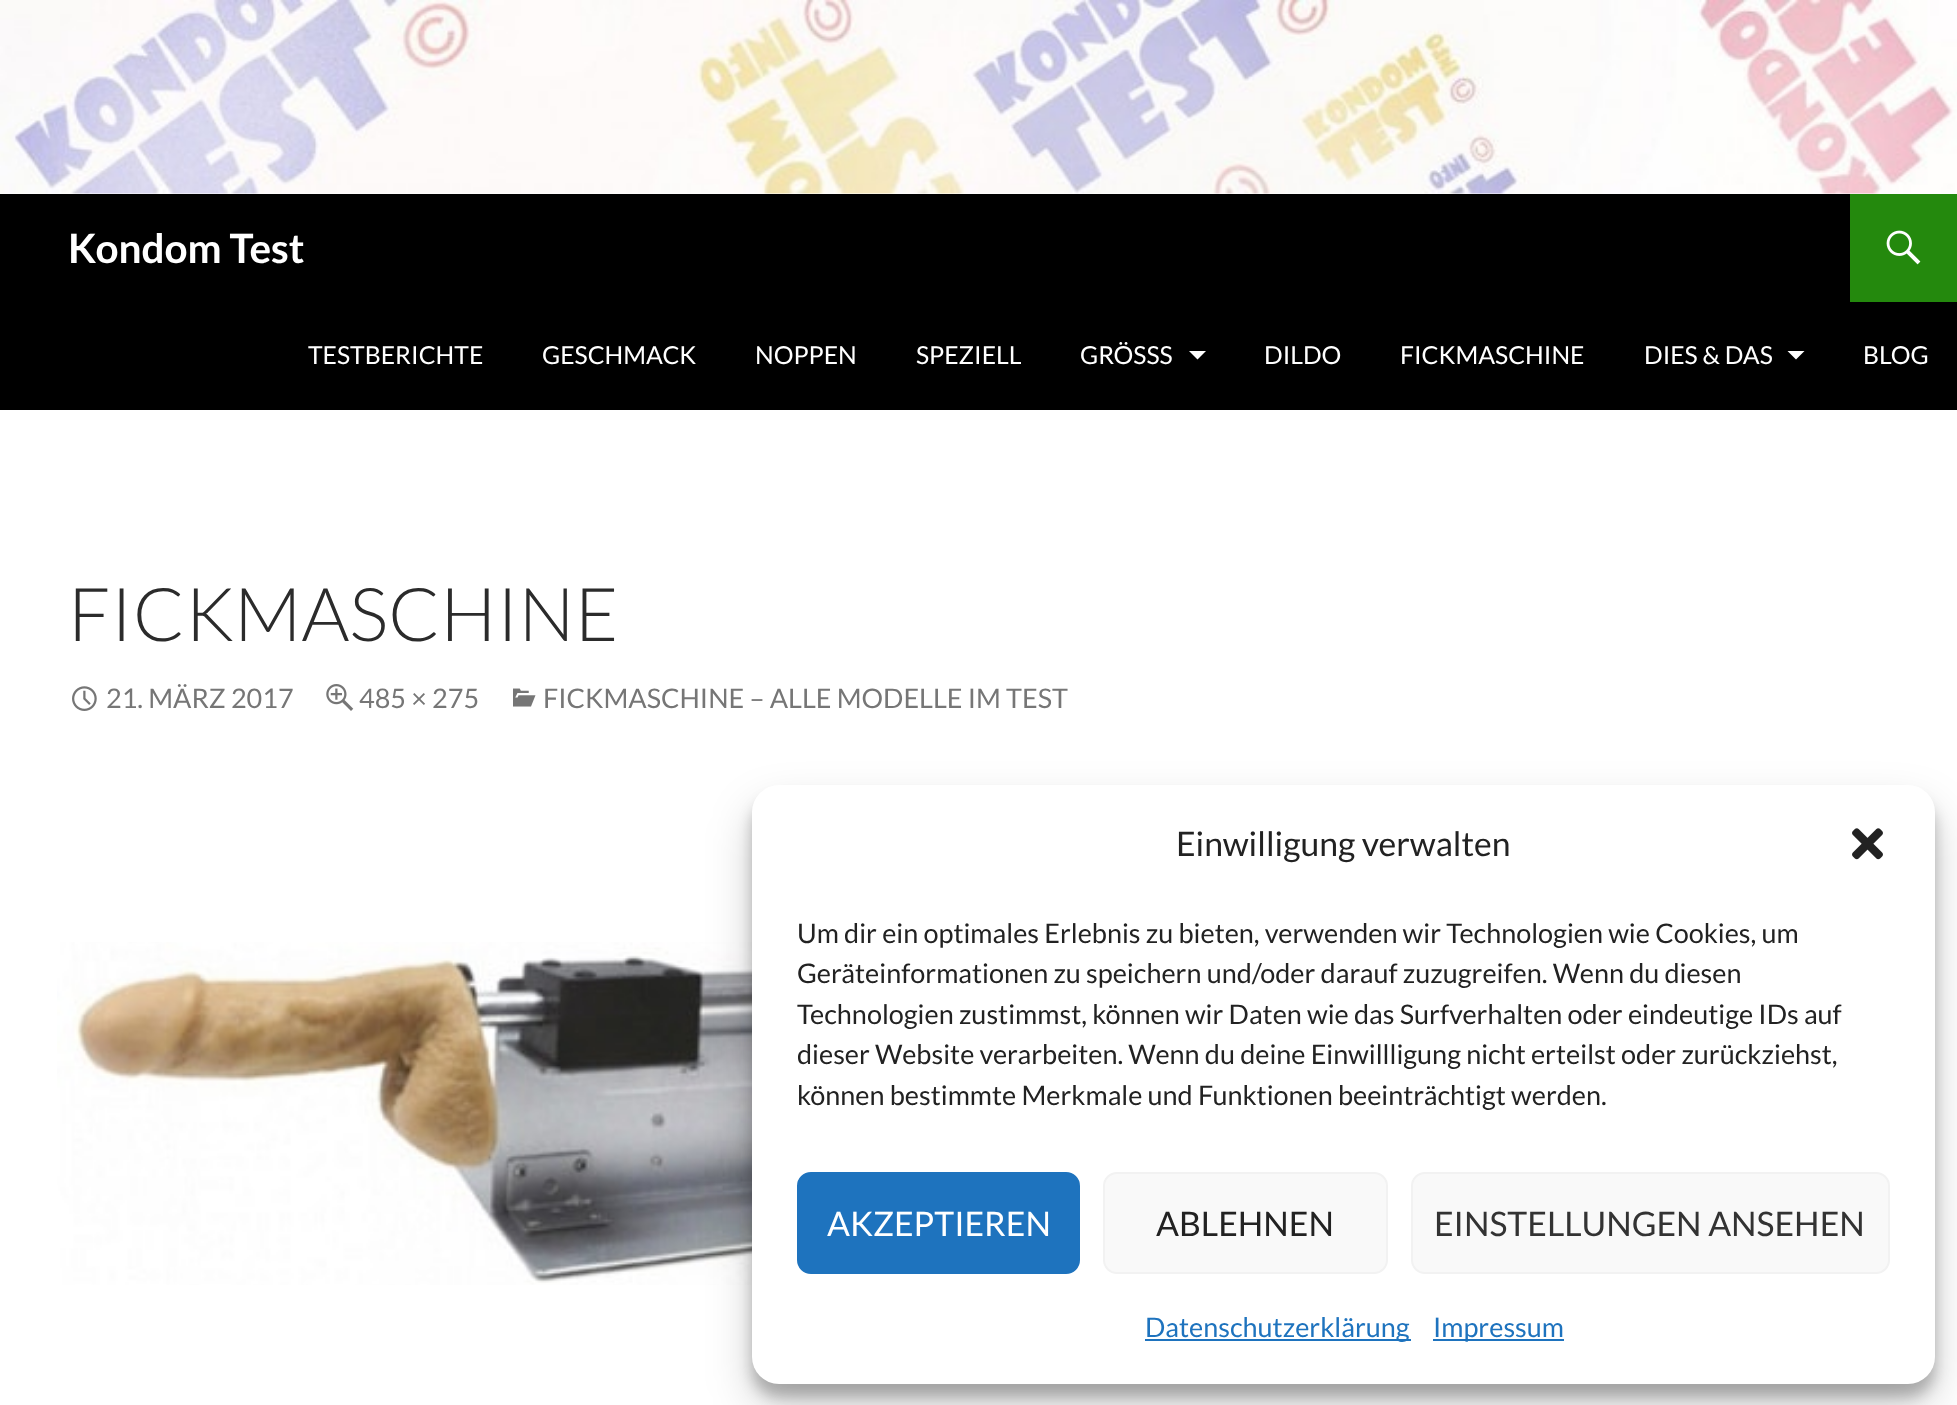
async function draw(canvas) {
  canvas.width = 1957;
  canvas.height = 1405;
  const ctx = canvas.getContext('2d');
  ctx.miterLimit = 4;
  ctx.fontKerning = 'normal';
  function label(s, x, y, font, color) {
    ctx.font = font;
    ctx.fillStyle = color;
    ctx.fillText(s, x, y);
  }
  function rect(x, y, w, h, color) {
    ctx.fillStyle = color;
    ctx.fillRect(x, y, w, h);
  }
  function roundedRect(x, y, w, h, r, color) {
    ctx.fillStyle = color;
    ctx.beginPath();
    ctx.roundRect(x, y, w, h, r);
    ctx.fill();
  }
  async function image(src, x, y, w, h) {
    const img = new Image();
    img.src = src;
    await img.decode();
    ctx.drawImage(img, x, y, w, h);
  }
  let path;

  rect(0, 0, 1957, 1405, '#fff');
  await image('assets/img1.png', 0, 0, 1957, 194);
  rect(0, 194, 1957, 216, '#000');
  label('Kondom Test', 68, 263, 'bold 40.5px Lato', '#fff');
  rect(1850, 194, 107, 108, '#24890d');
  await image('assets/img2.png', 1886, 230, 35, 35);
  label('TESTBERICHTE', 308, 364, '24.75px Lato', '#fff');
  label('GESCHMACK', 542, 364, '24.75px Lato', '#fff');
  label('NOPPEN', 755, 364, '24.75px Lato', '#fff');
  label('SPEZIELL', 916, 364, '24.75px Lato', '#fff');
  label('GRÖSSS', 1080, 364, '24.75px Lato', '#fff');
  path = new Path2D('M1189 351L1197.5 359.5L1206 351Z');
  ctx.fill(path);
  label('DILDO', 1264, 364, '24.75px Lato', '#fff');
  label('FICKMASCHINE', 1400, 364, '24.75px Lato', '#fff');
  label('DIES & DAS', 1644, 364, '24.75px Lato', '#fff');
  path = new Path2D('M1787.5 351L1796 359.5L1804.5 351Z');
  ctx.fill(path);
  label('BLOG', 1863, 364, '24.75px Lato', '#fff');
  label('FICKMASCHINE', 68, 641, '300 74.25px Lato', '#2b2b2b');
  await image('assets/img3.png', 72, 686, 25, 25);
  label('21. MÄRZ 2017', 106, 708, '27px Lato', '#767676');
  await image('assets/img4.png', 326, 684, 28, 27);
  label('485 × 275', 359, 708, '27px Lato', '#767676');
  await image('assets/img5.png', 513, 688, 23, 19);
  label('FICKMASCHINE – ALLE MODELLE IM TEST', 543, 708, '27px Lato', '#767676');
  await image('assets/img6.png', 57, 942, 695, 343);
  ctx.fillStyle = '#0000003b';
  ctx.filter = 'blur(7px)';
  ctx.beginPath();
  ctx.roundRect(752, 799, 1183, 598, 27);
  ctx.fill();
  ctx.filter = 'none';
  ctx.fillStyle = '#00000030';
  ctx.filter = 'blur(22.5px)';
  ctx.beginPath();
  ctx.roundRect(752, 808, 1183, 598, 27);
  ctx.fill();
  ctx.filter = 'none';
  roundedRect(752, 785, 1183, 599, 27, '#fff');
  label('Einwilligung verwalten', 1176, 856, '33.75px Lato', '#222');
  await image('assets/img7.png', 1852, 828, 31, 32);
  label('Um dir ein optimales Erlebnis zu bieten, verwenden wir Technologien wie Cookies, um', 797, 943, '27px Lato', '#222');
  label('Geräteinformationen zu speichern und/oder darauf zuzugreifen. Wenn du diesen', 797, 983, '27px Lato', '#222');
  label('Technologien zustimmst, können wir Daten wie das Surfverhalten oder eindeutige IDs auf', 797, 1024, '27px Lato', '#222');
  label('dieser Website verarbeiten. Wenn du deine Einwillligung nicht erteilst oder zurückziehst,', 797, 1064, '27px Lato', '#222');
  label('können bestimmte Merkmale und Funktionen beeinträchtigt werden.', 797, 1105, '27px Lato', '#222');
  ctx.fillStyle = '#1e73be';
  ctx.beginPath();
  ctx.roundRect(798, 1173, 281, 100, 13);
  ctx.fill();
  ctx.strokeStyle = '#1e73be';
  ctx.lineWidth = 2;
  ctx.stroke();
  label('AKZEPTIEREN', 827, 1236, '33.75px Lato', '#fff');
  ctx.fillStyle = '#f9f9f9';
  ctx.beginPath();
  ctx.roundRect(1104, 1173, 283, 100, 13);
  ctx.fill();
  ctx.strokeStyle = '#f2f2f2';
  ctx.stroke();
  label('ABLEHNEN', 1156, 1236, '33.75px Lato', '#222');
  ctx.fillStyle = '#f9f9f9';
  ctx.beginPath();
  ctx.roundRect(1412, 1173, 477, 100, 13);
  ctx.fill();
  ctx.stroke();
  label('EINSTELLUNGEN ANSEHEN', 1434, 1236, '33.75px Lato', '#333');
  rect(1145, 1339, 266, 2, '#1e73be');
  label('Datenschutzerklärung', 1145, 1337, '27px Lato', '#1e73be');
  rect(1433, 1339, 131, 2, '#1e73be');
  label('Impressum', 1433, 1337, '27px Lato', '#1e73be');
}

draw(document.querySelector('canvas'));
